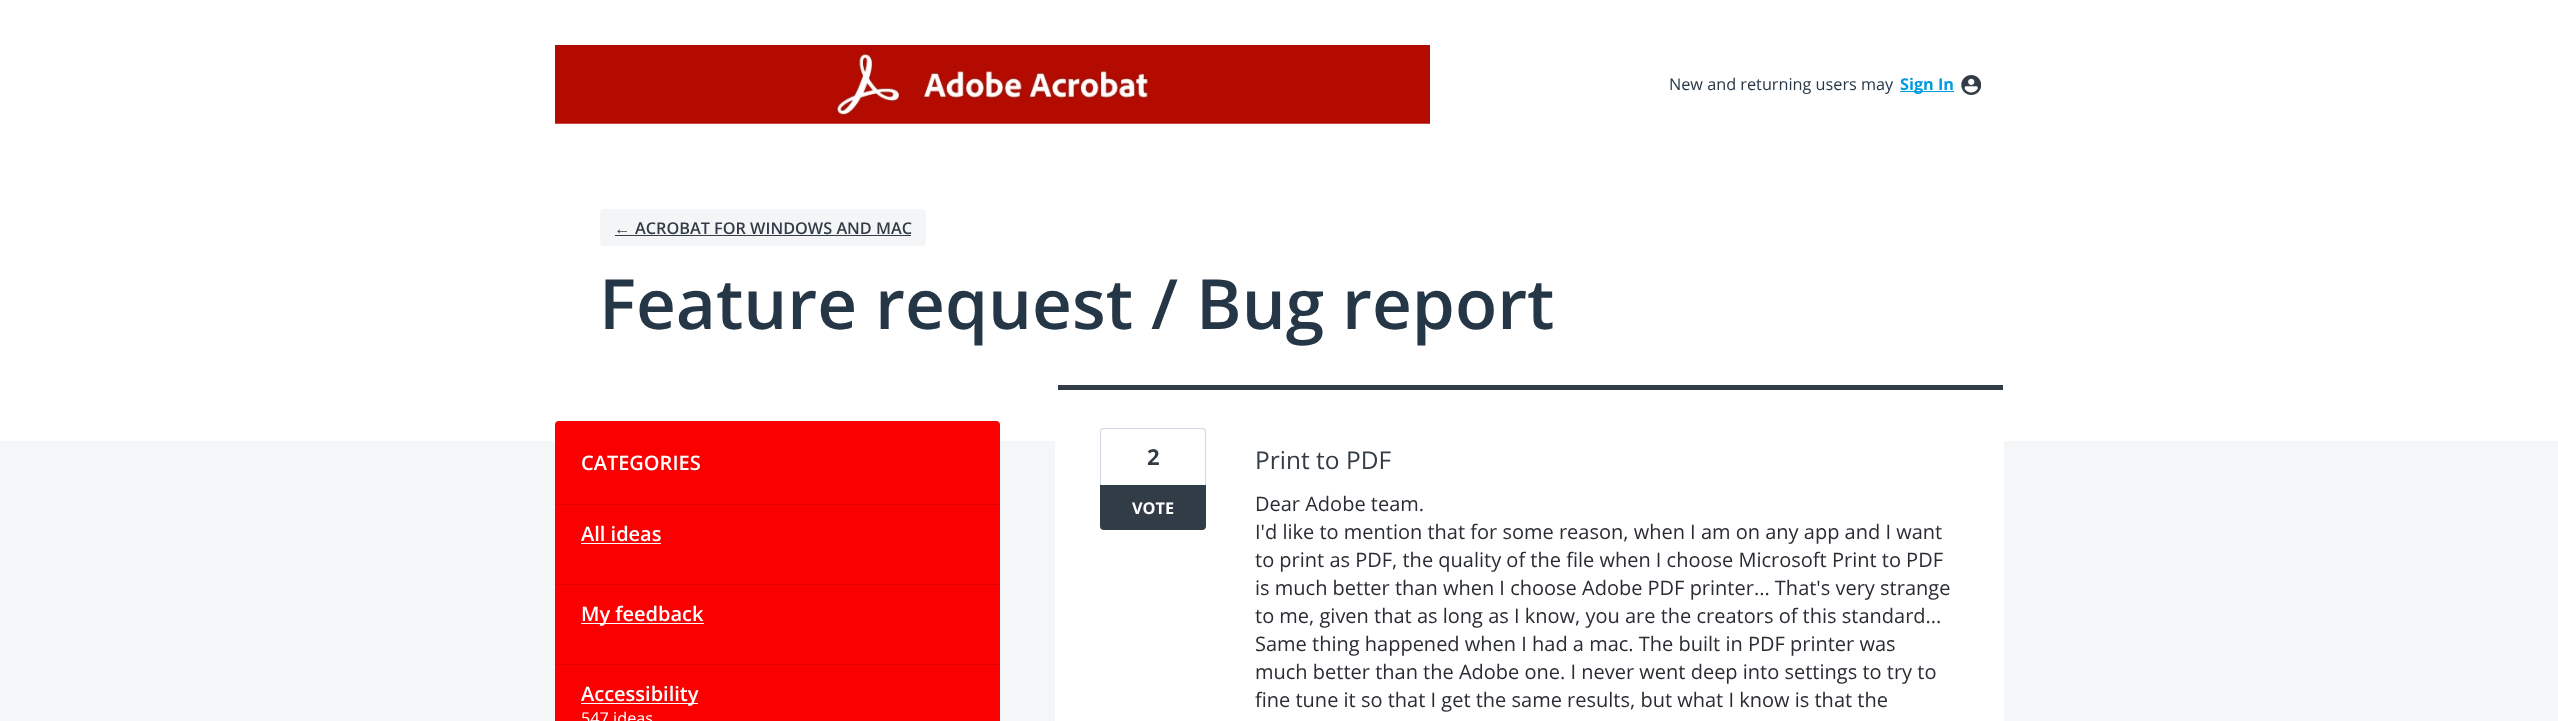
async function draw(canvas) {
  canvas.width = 2558;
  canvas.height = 721;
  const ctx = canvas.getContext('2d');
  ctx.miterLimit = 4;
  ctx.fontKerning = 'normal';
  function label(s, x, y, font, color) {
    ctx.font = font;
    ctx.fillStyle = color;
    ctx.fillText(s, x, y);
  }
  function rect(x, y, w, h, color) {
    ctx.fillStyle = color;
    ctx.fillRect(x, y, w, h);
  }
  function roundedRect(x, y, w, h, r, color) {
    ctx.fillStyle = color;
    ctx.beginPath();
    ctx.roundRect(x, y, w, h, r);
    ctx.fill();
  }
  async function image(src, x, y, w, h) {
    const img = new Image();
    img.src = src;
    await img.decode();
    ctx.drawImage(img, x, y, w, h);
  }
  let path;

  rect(0, 0, 2558, 721, '#fff');
  await image('assets/img1.png', 555, 45, 875, 79);
  label('New and returning users may', 1669, 90, '16.25px Open Sans', '#253746');
  rect(1900, 91, 54, 1, '#009cde');
  label('Sign In', 1900, 90, 'bold 16.25px Open Sans', '#009cde');
  await image('assets/img2.png', 1961, 75, 20, 20);
  roundedRect(600, 209, 326, 37, 4, '#f4f5f6');
  label('←', 614, 234, 'bold 16.25px Liberation Sans', '#323c46');
  rect(615, 235, 296, 1, '#323c46');
  label('ACROBAT FOR WINDOWS AND MAC', 635, 234, '600 16.25px Open Sans', '#323c46');
  label('Feature request / Bug report', 599, 329, '600 69.25px Open Sans', '#253746');
  rect(0, 441, 2558, 280, '#f5f6f7');
  ctx.fillStyle = '#fa0000';
  ctx.beginPath();
  ctx.roundRect(555, 421, 445, 84, [4, 4, 0, 0]);
  ctx.fill();
  rect(555, 504, 445, 1, '#e10000');
  label('CATEGORIES', 581, 470, '600 20px Open Sans', '#fff');
  rect(555, 505, 445, 79, '#fa0000');
  rect(555, 584, 445, 1, '#e10000');
  label('All ideas', 581, 541, '600 20px Open Sans', '#fff');
  rect(581, 543, 80, 1, '#fff');
  rect(555, 585, 445, 79, '#fa0000');
  rect(555, 664, 445, 1, '#e10000');
  rect(581, 623, 123, 1, '#fff');
  label('My feedback', 581, 621, '600 20px Open Sans', '#fff');
  rect(555, 665, 445, 56, '#fa0000');
  rect(581, 703, 117, 1, '#fff');
  label('Accessibility', 581, 701, '600 20px Open Sans', '#fff');
  label('547 ideas', 581, 724, '16.25px Open Sans', '#fff');
  path = new Path2D('M1059 390H2004V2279C2004 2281 2002 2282 2000 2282H1059C1057 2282 1055 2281 1055 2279V390Z');
  ctx.fill(path);
  rect(1058, 385, 945, 5, '#323c46');
  ctx.fillStyle = '#cfd7e6';
  path = new Path2D('M1104 428H1202C1205 428 1206 429 1206 431V485H1100V431C1100 429 1102 428 1104 428ZM1104 429H1202C1204 429 1205 430 1205 431V485H1101V431C1101 430 1102 429 1104 429Z');
  ctx.fill(path, 'evenodd');
  label('2', 1147, 465, 'bold 22px Open Sans', '#323c46');
  ctx.beginPath();
  ctx.roundRect(1100, 485, 106, 45, [0, 0, 4, 4]);
  ctx.fill();
  label('VOTE', 1132, 514, 'bold 16.25px Open Sans', '#fff');
  label('Print to PDF', 1255, 469, '24.5px Open Sans', '#323c46');
  label('Dear Adobe team.', 1255, 511, '20px Open Sans', '#292c33');
  label('I\'d like to mention that for some reason, when I am on any app and I want', 1255, 539, '20px Open Sans', '#292c33');
  label('to print as PDF, the quality of the file when I choose Microsoft Print to PDF', 1255, 567, '20px Open Sans', '#292c33');
  label('is much better than when I choose Adobe PDF printer... That\'s very strange', 1255, 595, '20px Open Sans', '#292c33');
  label('to me, given that as long as I know, you are the creators of this standard...', 1255, 623, '20px Open Sans', '#292c33');
  label('Same thing happened when I had a mac. The built in PDF printer was', 1255, 651, '20px Open Sans', '#292c33');
  label('much better than the Adobe one. I never went deep into settings to try to', 1255, 679, '20px Open Sans', '#292c33');
  label('fine tune it so that I get the same results, but what I know is that the', 1255, 707, '20px Open Sans', '#292c33');
}

draw(document.querySelector('canvas'));
